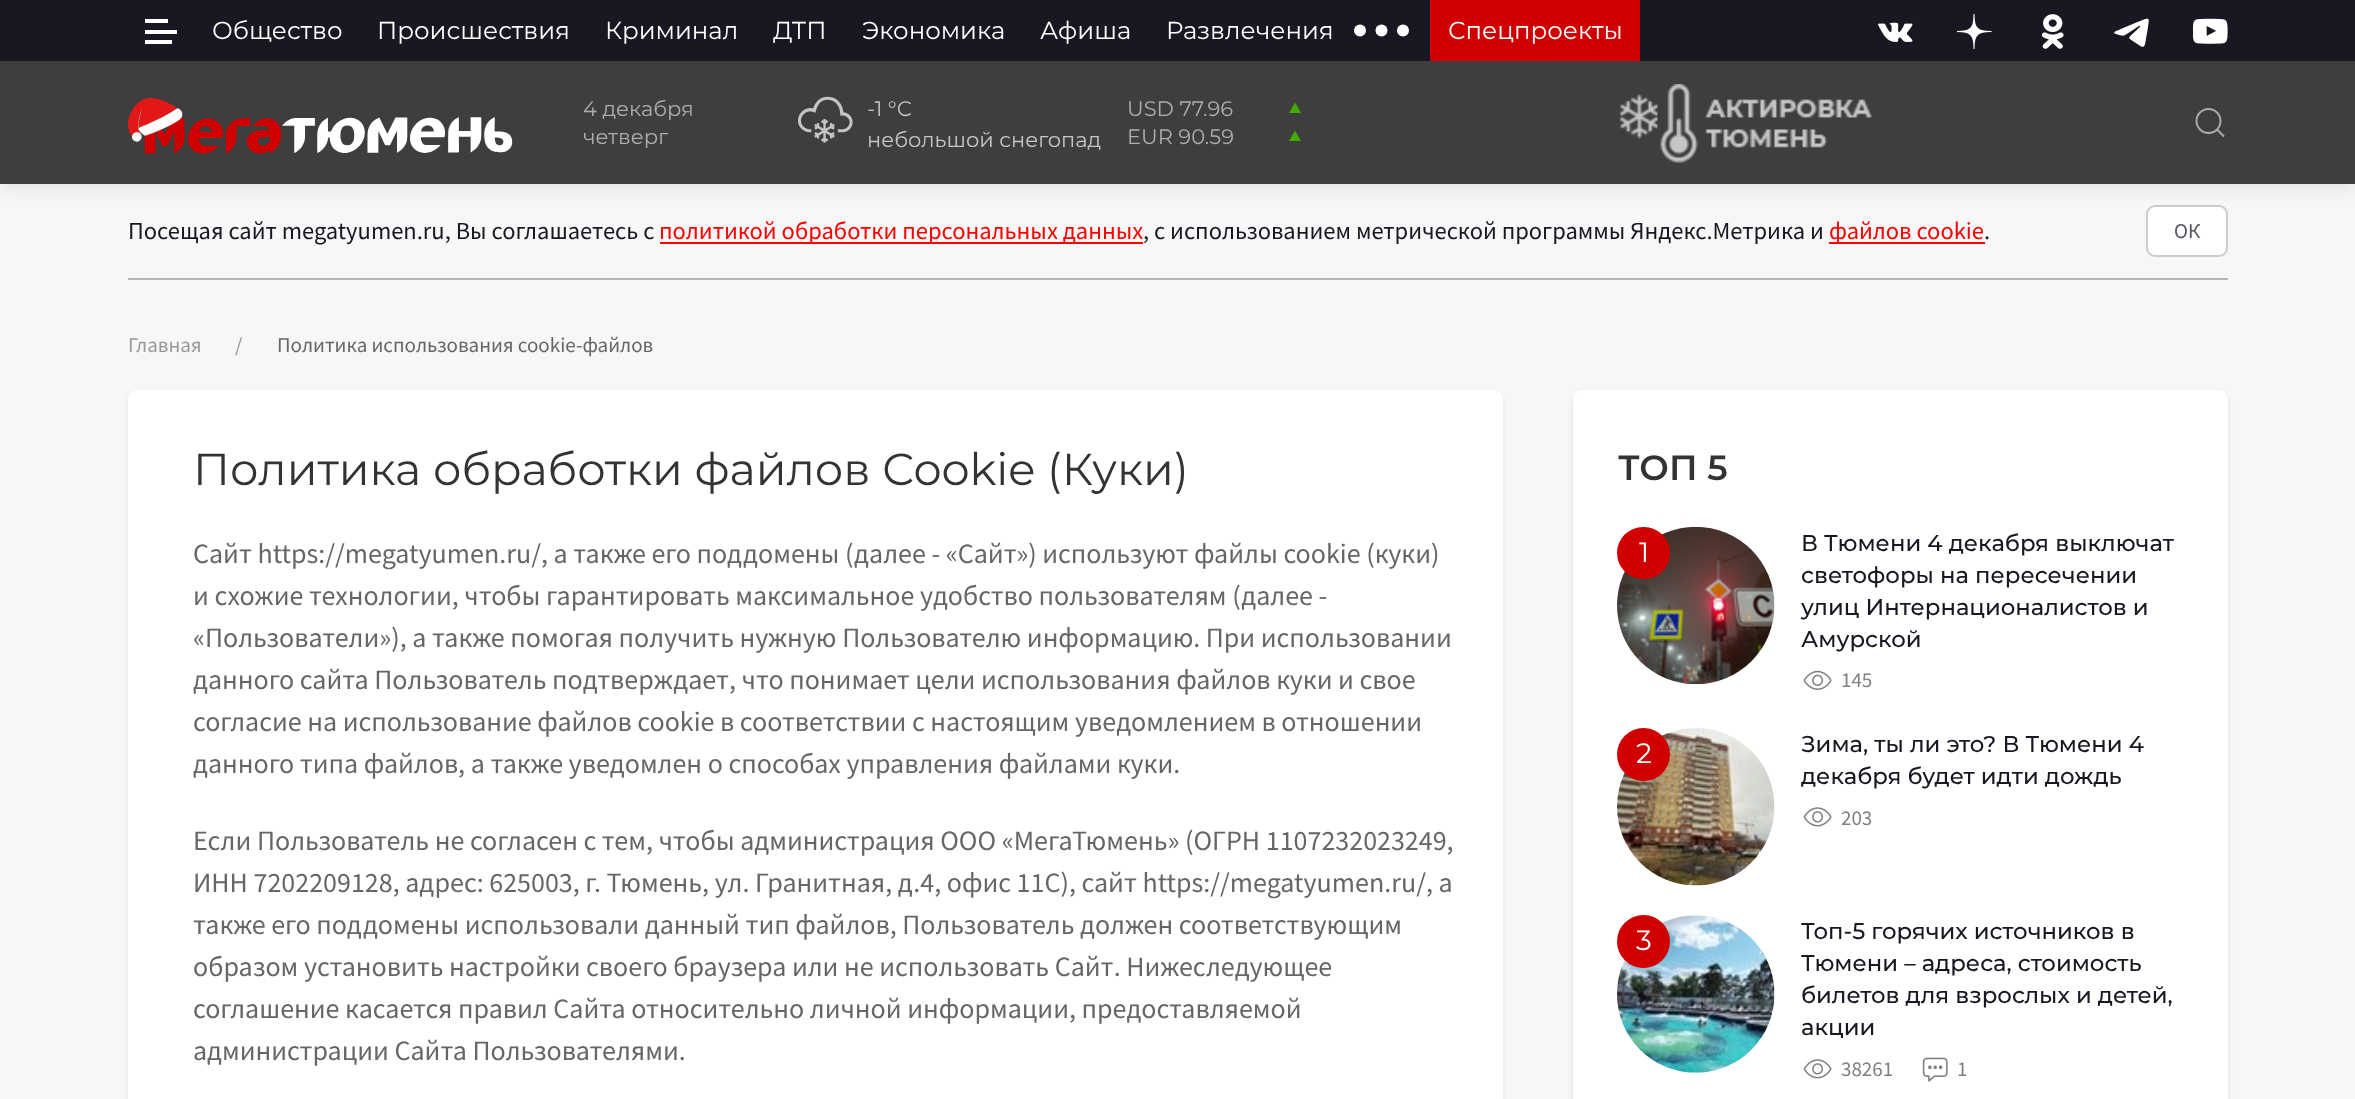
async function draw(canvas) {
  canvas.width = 2355;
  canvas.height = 1099;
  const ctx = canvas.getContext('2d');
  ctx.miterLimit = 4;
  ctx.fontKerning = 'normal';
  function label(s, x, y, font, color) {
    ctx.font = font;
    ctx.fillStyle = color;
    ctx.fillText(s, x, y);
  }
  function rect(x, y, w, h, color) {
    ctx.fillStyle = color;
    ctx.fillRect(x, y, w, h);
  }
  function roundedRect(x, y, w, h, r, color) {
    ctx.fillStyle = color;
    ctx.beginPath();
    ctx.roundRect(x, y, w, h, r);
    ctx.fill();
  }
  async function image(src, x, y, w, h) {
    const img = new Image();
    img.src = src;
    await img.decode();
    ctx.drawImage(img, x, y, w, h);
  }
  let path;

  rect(0, 0, 2355, 1099, '#f7f7f7');
  ctx.fillStyle = '#0000001a';
  ctx.filter = 'blur(9px)';
  ctx.beginPath();
  ctx.rect(0, 4, 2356, 183);
  ctx.fill();
  ctx.filter = 'none';
  rect(0, 0, 2355, 61, '#171821');
  rect(145, 30, 32, 4, '#fff');
  rect(145, 19, 23, 4, '#fff');
  rect(145, 40, 27, 4, '#fff');
  label('Общество', 212, 39, '24.5px Montserrat', '#fff');
  label('Происшествия', 377, 39, '24.5px Montserrat', '#fff');
  label('Криминал', 605, 39, '24.5px Montserrat', '#fff');
  label('ДТП', 773, 39, '24.5px Montserrat', '#fff');
  label('Экономика', 862, 39, '24.5px Montserrat', '#fff');
  label('Афиша', 1040, 39, '24.5px Montserrat', '#fff');
  label('Развлечения', 1166, 39, '24.5px Montserrat', '#fff');
  ctx.beginPath();
  ctx.arc(1360, 30.5, 6, 0, 2 * Math.PI);
  ctx.fill();
  ctx.beginPath();
  ctx.arc(1381.5, 30.5, 6, 0, 2 * Math.PI);
  ctx.fill();
  ctx.beginPath();
  ctx.arc(1403, 30.5, 6, 0, 2 * Math.PI);
  ctx.fill();
  rect(1430, 0, 210, 61, '#d00000');
  label('Спецпроекты', 1448, 39, '24.5px Montserrat', '#fff');
  await image('assets/img1.png', 1878, 22, 35, 20);
  await image('assets/img2.png', 1957, 14, 35, 35);
  await image('assets/img3.png', 2042, 14, 22, 35);
  await image('assets/img4.png', 2114, 18, 35, 29);
  await image('assets/img5.png', 2193, 18, 35, 26);
  rect(0, 61, 2355, 123, '#3e3e3e');
  await image('assets/img6.png', 127, 98, 386, 56);
  label('4 декабря', 583, 116, '21px Montserrat', '#adadad');
  label('четверг', 583, 144, '21px Montserrat', '#adadad');
  await image('assets/img7.png', 798, 96, 55, 47);
  label('-1 °С', 867, 116, '21px Montserrat', '#c5c5c5');
  label('небольшой снегопад', 867, 147, '21px Montserrat', '#c5c5c5');
  label('USD 77.96', 1127, 116, '21px Montserrat', '#adadad');
  ctx.fillStyle = '#42ab00';
  path = new Path2D('M1295 102.5L1301 113H1289ZM1295 130.5L1301 141H1289Z');
  ctx.fill(path);
  label('EUR 90.59', 1127, 144, '21px Montserrat', '#adadad');
  await image('assets/img8.png', 1619, 84, 254, 79);
  ctx.beginPath();
  ctx.arc(2208.5, 121, 12, 0, 2 * Math.PI);
  ctx.strokeStyle = '#adadad';
  ctx.lineWidth = 1.9;
  ctx.stroke();
  path = new Path2D('M2217 129.5L2224 136.5Z');
  ctx.stroke(path);
  rect(128, 278, 2100, 2, '#b4b4b4');
  label('Посещая сайт megatyumen.ru, Вы соглашаетесь с', 128, 239, '24.5px Source Sans Pro', '#171821');
  rect(660, 242, 483, 2, '#f00');
  label('политикой обработки персональных данных', 659, 239, '24.5px Source Sans Pro', '#f00');
  label(', с использованием метрической программы Яндекс.Метрика и', 1143, 239, '24.5px Source Sans Pro', '#171821');
  rect(1829, 242, 156, 2, '#f00');
  label('файлов cookie', 1829, 239, '24.5px Source Sans Pro', '#f00');
  label('.', 1984, 239, '24.5px Source Sans Pro', '#171821');
  ctx.fillStyle = '#fff';
  ctx.beginPath();
  ctx.roundRect(2147, 206, 80, 50, 8);
  ctx.fill();
  ctx.strokeStyle = '#ccc';
  ctx.lineWidth = 2;
  ctx.stroke();
  label('ОК', 2174, 238, '21px Source Sans Pro', '#54555e');
  label('Главная', 128, 352, '21px Source Sans Pro', '#999');
  label('/', 235, 352, '21px Source Sans Pro', '#999');
  label('Политика использования cookie-файлов', 277, 352, '21px Source Sans Pro', '#666');
  ctx.fillStyle = '#0000001a';
  ctx.filter = 'blur(2.5px)';
  ctx.beginPath();
  ctx.roundRect(128, 394, 1375, 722, 9);
  ctx.fill();
  ctx.filter = 'none';
  roundedRect(128, 390, 1375, 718, 9, '#fff');
  label('Политика обработки файлов Cookie (Куки)', 193, 485, '44.8px Montserrat', '#333');
  label('Сайт https://megatyumen.ru/, а также его поддомены (далее - «Сайт») используют файлы cookie (куки)', 193, 563, '28px Source Sans Pro', '#666');
  label('и схожие технологии, чтобы гарантировать максимальное удобство пользователям (далее -', 193, 605, '28px Source Sans Pro', '#666');
  label('«Пользователи»), а также помогая получить нужную Пользователю информацию. При использовании', 193, 647, '28px Source Sans Pro', '#666');
  label('данного сайта Пользователь подтверждает, что понимает цели использования файлов куки и свое', 193, 689, '28px Source Sans Pro', '#666');
  label('согласие на использование файлов cookie в соответствии с настоящим уведомлением в отношении', 193, 731, '28px Source Sans Pro', '#666');
  label('данного типа файлов, а также уведомлен о способах управления файлами куки.', 193, 773, '28px Source Sans Pro', '#666');
  label('Если Пользователь не согласен с тем, чтобы администрация ООО «МегаТюмень» (ОГРН 1107232023249,', 193, 850, '28px Source Sans Pro', '#666');
  label('ИНН 7202209128, адрес: 625003, г. Тюмень, ул. Гранитная, д.4, офис 11С), сайт https://megatyumen.ru/, а', 193, 892, '28px Source Sans Pro', '#666');
  label('также его поддомены использовали данный тип файлов, Пользователь должен соответствующим', 193, 934, '28px Source Sans Pro', '#666');
  label('образом установить настройки своего браузера или не использовать Сайт. Нижеследующее', 193, 976, '28px Source Sans Pro', '#666');
  label('соглашение касается правил Сайта относительно личной информации, предоставляемой', 193, 1018, '28px Source Sans Pro', '#666');
  label('администрации Сайта Пользователями.', 193, 1060, '28px Source Sans Pro', '#666');
  ctx.fillStyle = '#0000001a';
  ctx.filter = 'blur(2.5px)';
  ctx.beginPath();
  ctx.roundRect(1573, 394, 655, 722, 9);
  ctx.fill();
  ctx.filter = 'none';
  roundedRect(1573, 390, 655, 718, 9, '#fff');
  label('ТОП 5', 1618, 480, '600 35px Montserrat', '#333');
  await image('assets/img9.png', 1617, 526, 158, 159);
  roundedRect(1617, 527, 53, 52, 26, '#d00000');
  label('1', 1639, 562, '28px Montserrat', '#fff');
  label('В Тюмени 4 декабря выключат', 1801, 551, '500 22.75px Montserrat', '#171821');
  label('светофоры на пересечении', 1801, 583, '500 22.75px Montserrat', '#171821');
  label('улиц Интернационалистов и', 1801, 615, '500 22.75px Montserrat', '#171821');
  label('Амурской', 1801, 647, '500 22.75px Montserrat', '#171821');
  await image('assets/img10.png', 1803, 670, 29, 20);
  label('145', 1841, 687, '21px Source Sans Pro', '#808080');
  await image('assets/img11.png', 1617, 728, 158, 158);
  ctx.fillStyle = '#d00000';
  ctx.beginPath();
  ctx.arc(1643.5, 754.5, 26.5, 0, 2 * Math.PI);
  ctx.fill();
  label('2', 1636, 763, '28px Montserrat', '#fff');
  label('Зима, ты ли это? В Тюмени 4', 1801, 752, '500 22.75px Montserrat', '#171821');
  label('декабря будет идти дождь', 1801, 784, '500 22.75px Montserrat', '#171821');
  await image('assets/img12.png', 1803, 807, 29, 20);
  label('203', 1841, 825, '21px Source Sans Pro', '#808080');
  await image('assets/img13.png', 1617, 915, 158, 158);
  ctx.fillStyle = '#d00000';
  ctx.beginPath();
  ctx.arc(1643.5, 941.5, 26.5, 0, 2 * Math.PI);
  ctx.fill();
  label('3', 1636, 950, '28px Montserrat', '#fff');
  label('Топ-5 горячих источников в', 1801, 939, '500 22.75px Montserrat', '#171821');
  label('Тюмени – адреса, стоимость', 1801, 971, '500 22.75px Montserrat', '#171821');
  label('билетов для взрослых и детей,', 1801, 1003, '500 22.75px Montserrat', '#171821');
  label('акции', 1801, 1035, '500 22.75px Montserrat', '#171821');
  await image('assets/img12.png', 1803, 1059, 29, 20);
  label('38261', 1841, 1076, '21px Source Sans Pro', '#808080');
  await image('assets/img14.png', 1922, 1057, 26, 25);
  label('1', 1957, 1076, '21px Source Sans Pro', '#808080');
}

draw(document.querySelector('canvas'));
